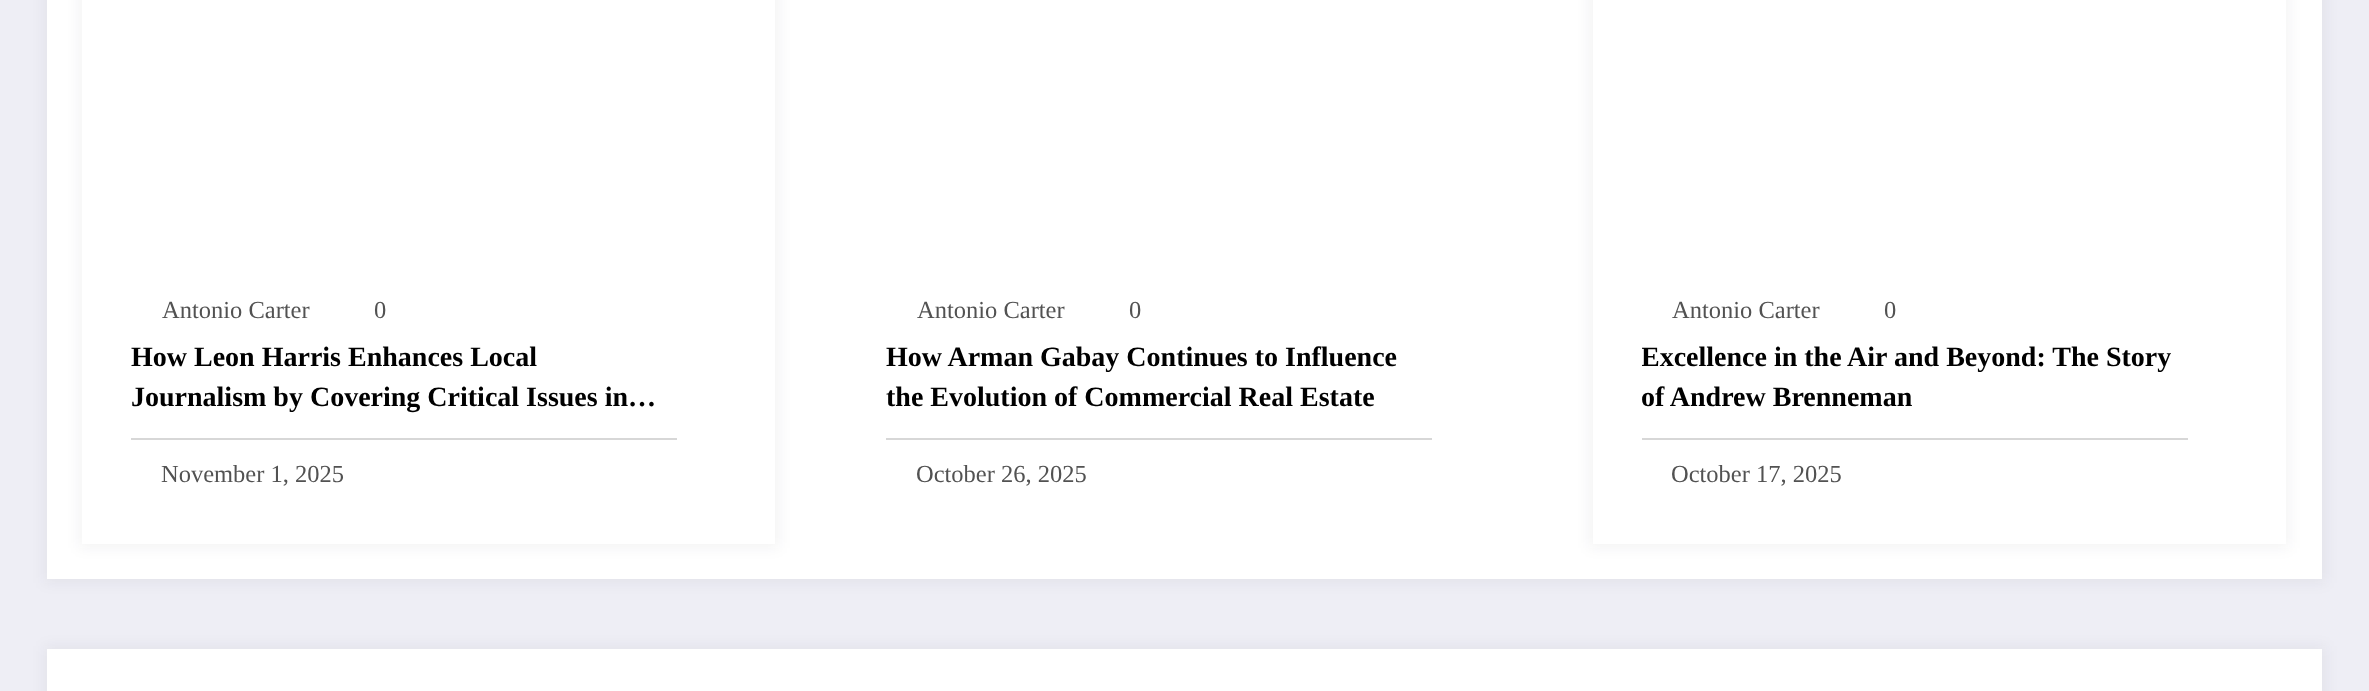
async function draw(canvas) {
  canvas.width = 2369;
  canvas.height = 691;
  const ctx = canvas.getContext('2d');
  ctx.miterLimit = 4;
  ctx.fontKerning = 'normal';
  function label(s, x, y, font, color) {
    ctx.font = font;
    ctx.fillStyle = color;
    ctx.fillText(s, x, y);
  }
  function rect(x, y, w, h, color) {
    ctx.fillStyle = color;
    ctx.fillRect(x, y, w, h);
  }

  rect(0, 0, 2369, 691, '#eeeef5');
  ctx.fillStyle = '#1717230d';
  ctx.filter = 'blur(7px)';
  ctx.beginPath();
  ctx.rect(44, -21, 2282, 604);
  ctx.fill();
  ctx.filter = 'none';
  rect(47, 0, 2275, 579, '#fff');
  ctx.fillStyle = '#1717230d';
  ctx.filter = 'blur(7px)';
  ctx.beginPath();
  ctx.rect(79, -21, 700, 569);
  ctx.fill();
  ctx.filter = 'none';
  rect(82, 0, 693, 544, '#fff');
  rect(131, 438, 546, 2, '#d7d7d7');
  label('Antonio Carter', 162, 318, '24.5px Liberation Serif', '#525252');
  label('0', 374, 318, '24.5px Liberation Serif', '#525252');
  label('How Leon Harris Enhances Local', 131, 366, 'bold 28px Liberation Serif', '#000');
  label('Journalism by Covering Critical Issues in…', 131, 406, 'bold 28px Liberation Serif', '#000');
  label('November 1, 2025', 161, 482, '24.5px Liberation Serif', '#525252');
  rect(886, 438, 546, 2, '#d7d7d7');
  label('Antonio Carter', 917, 318, '24.5px Liberation Serif', '#525252');
  label('0', 1129, 318, '24.5px Liberation Serif', '#525252');
  label('How Arman Gabay Continues to Influence', 886, 366, 'bold 28px Liberation Serif', '#000');
  label('the Evolution of Commercial Real Estate', 886, 406, 'bold 28px Liberation Serif', '#000');
  label('October 26, 2025', 916, 482, '24.5px Liberation Serif', '#525252');
  ctx.fillStyle = '#1717230d';
  ctx.filter = 'blur(7px)';
  ctx.beginPath();
  ctx.rect(1589, -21, 700, 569);
  ctx.fill();
  ctx.filter = 'none';
  rect(1593, 0, 693, 544, '#fff');
  rect(1642, 438, 546, 2, '#d7d7d7');
  label('Antonio Carter', 1672, 318, '24.5px Liberation Serif', '#525252');
  label('0', 1884, 318, '24.5px Liberation Serif', '#525252');
  ctx.save();
  ctx.beginPath();
  ctx.rect(1642, 338, 546, 79);
  ctx.clip();
  label('Excellence in the Air and Beyond: The Story', 1641, 366, 'bold 28px Liberation Serif', '#000');
  ctx.restore();
  label('of Andrew Brenneman', 1641, 406, 'bold 28px Liberation Serif', '#000');
  label('October 17, 2025', 1671, 482, '24.5px Liberation Serif', '#525252');
  ctx.fillStyle = '#1717230d';
  ctx.filter = 'blur(7px)';
  ctx.beginPath();
  ctx.rect(44, 646, 2282, 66);
  ctx.fill();
  ctx.filter = 'none';
  rect(47, 649, 2275, 42, '#fff');
}

draw(document.querySelector('canvas'));
